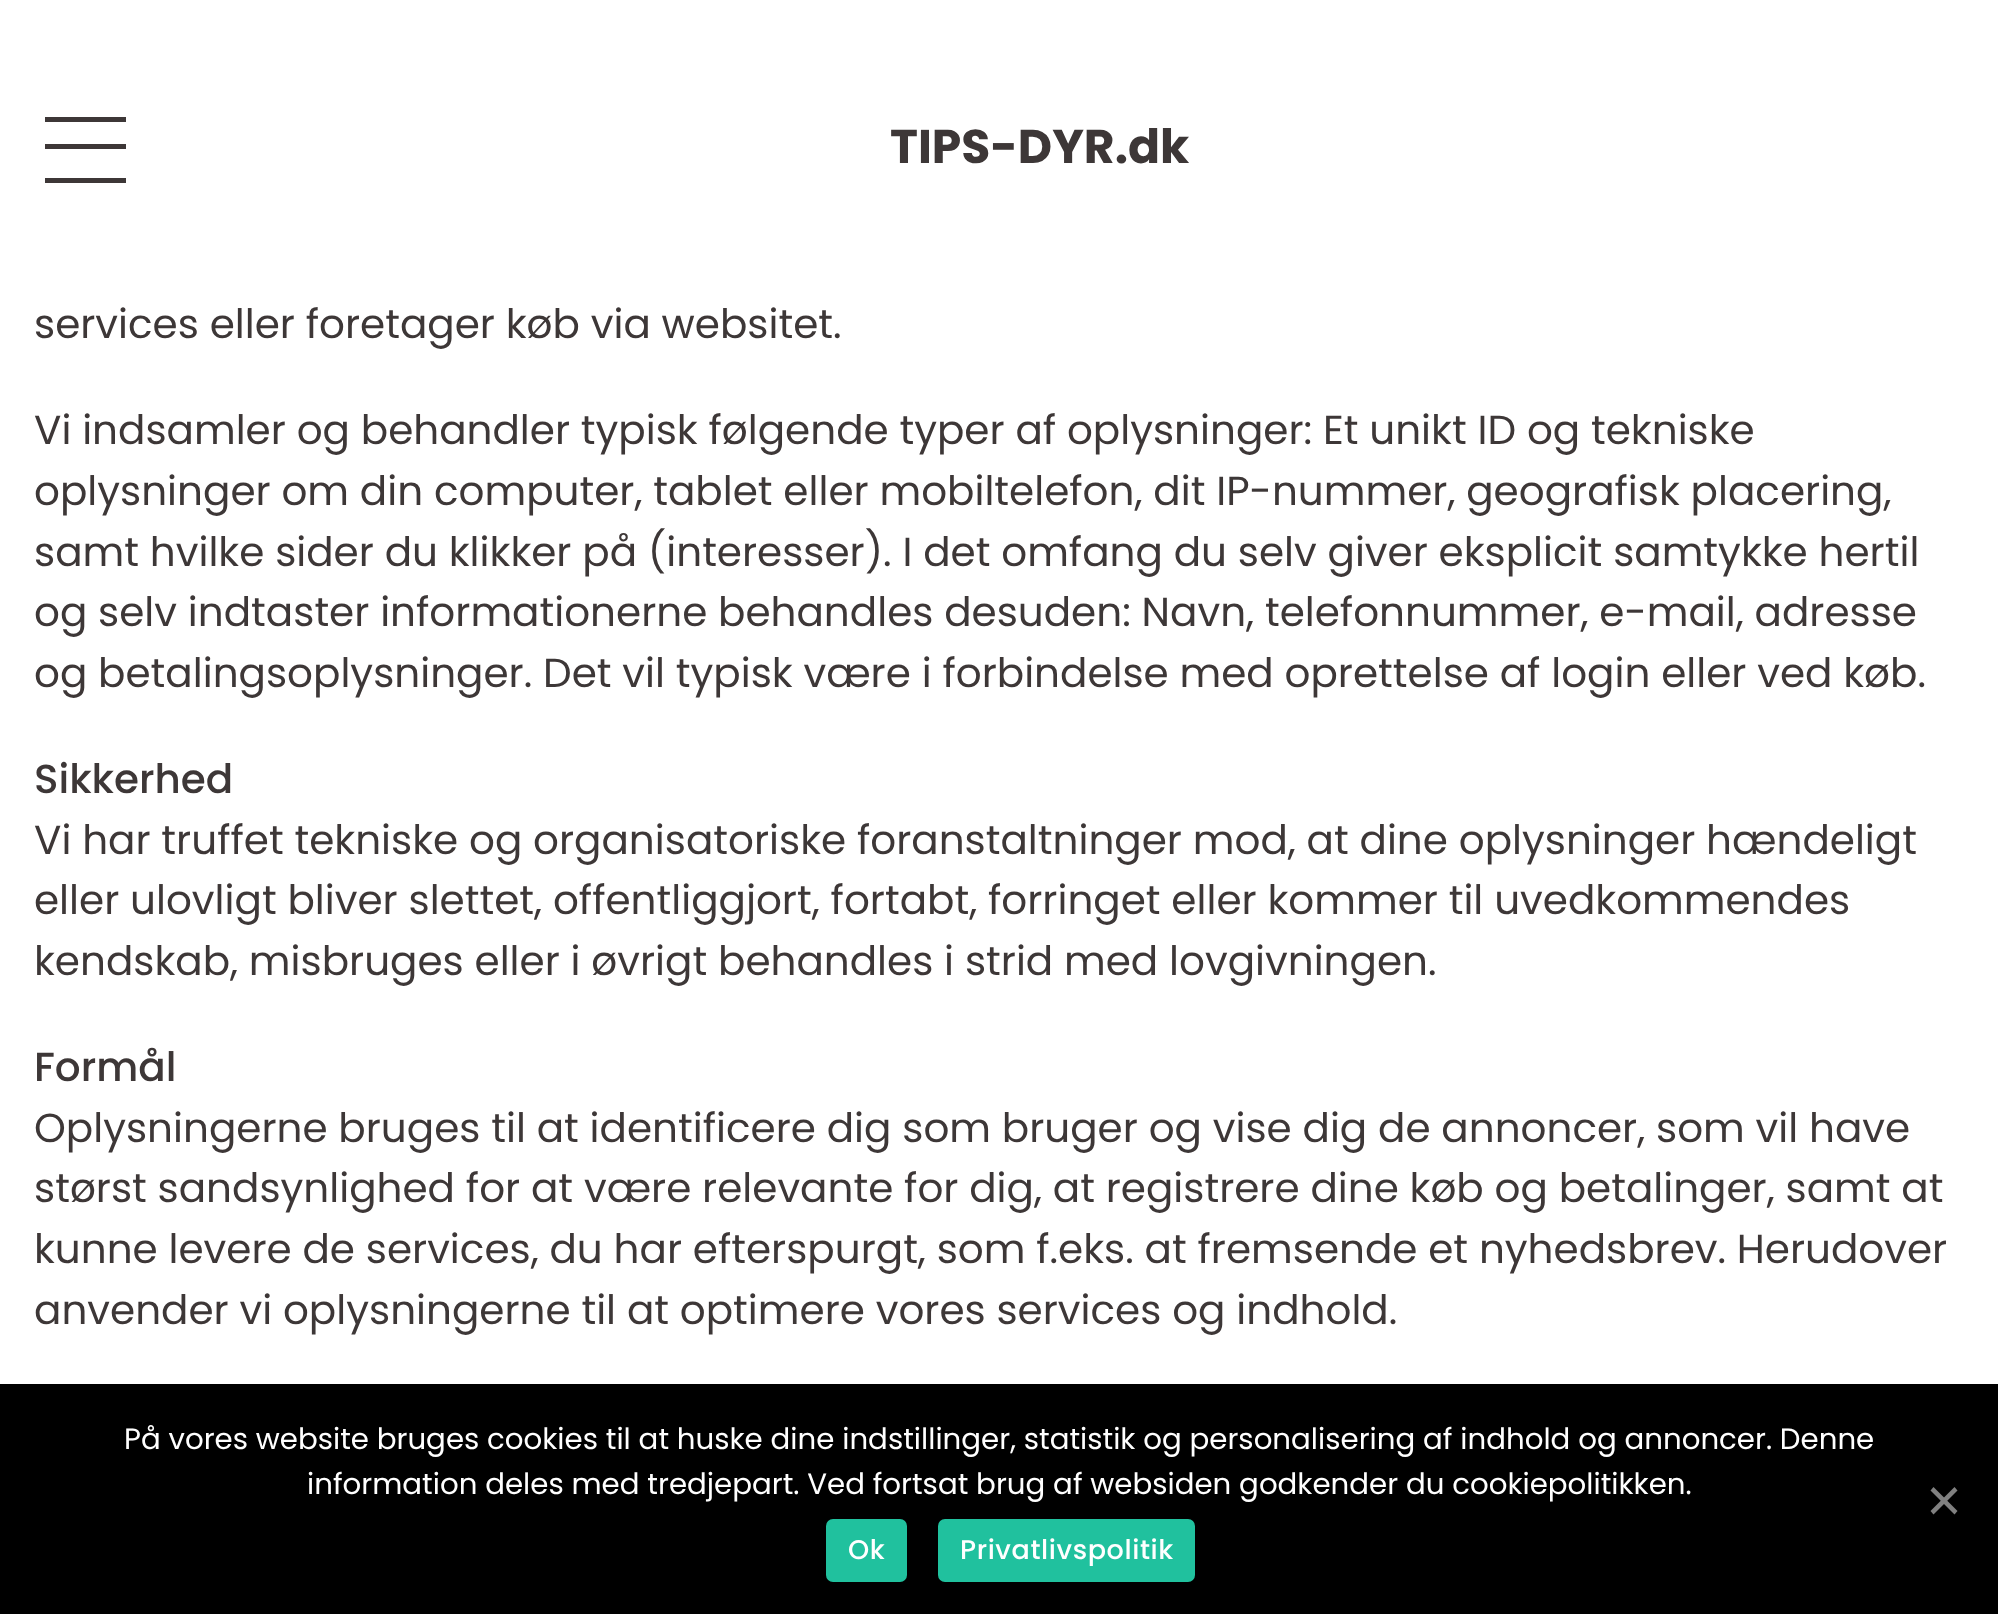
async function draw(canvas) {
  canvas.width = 1998;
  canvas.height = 1614;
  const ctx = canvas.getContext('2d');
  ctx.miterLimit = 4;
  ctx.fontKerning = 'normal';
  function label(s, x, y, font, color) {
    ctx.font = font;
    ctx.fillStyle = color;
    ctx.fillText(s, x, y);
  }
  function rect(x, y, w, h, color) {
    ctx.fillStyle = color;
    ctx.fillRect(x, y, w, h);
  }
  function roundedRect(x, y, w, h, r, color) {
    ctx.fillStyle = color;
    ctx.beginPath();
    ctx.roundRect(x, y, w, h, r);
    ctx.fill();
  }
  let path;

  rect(0, 0, 1998, 1614, '#fff');
  rect(45, 117, 81, 5, '#3d3737');
  rect(45, 144, 81, 5, '#3d3737');
  rect(45, 178, 81, 5, '#3d3737');
  label('TIPS-DYR.dk', 890, 163, 'bold 47.25px Poppins', '#3d3737');
  label('services eller foretager køb via websitet.', 34, 338, '40.5px Poppins', '#3d3737');
  label('Vi indsamler og behandler typisk følgende typer af oplysninger: Et unikt ID og tekniske', 34, 444, '40.5px Poppins', '#3d3737');
  label('oplysninger om din computer, tablet eller mobiltelefon, dit IP-nummer, geografisk placering,', 34, 505, '40.5px Poppins', '#3d3737');
  label('samt hvilke sider du klikker på (interesser). I det omfang du selv giver eksplicit samtykke hertil', 34, 566, '40.5px Poppins', '#3d3737');
  label('og selv indtaster informationerne behandles desuden: Navn, telefonnummer, e-mail, adresse', 34, 626, '40.5px Poppins', '#3d3737');
  label('og betalingsoplysninger. Det vil typisk være i forbindelse med oprettelse af login eller ved køb.', 34, 687, '40.5px Poppins', '#3d3737');
  label('Sikkerhed', 34, 793, '500 40.5px Poppins', '#3d3737');
  label('Vi har truffet tekniske og organisatoriske foranstaltninger mod, at dine oplysninger hændeligt', 34, 854, '40.5px Poppins', '#3d3737');
  label('eller ulovligt bliver slettet, offentliggjort, fortabt, forringet eller kommer til uvedkommendes', 34, 914, '40.5px Poppins', '#3d3737');
  label('kendskab, misbruges eller i øvrigt behandles i strid med lovgivningen.', 34, 975, '40.5px Poppins', '#3d3737');
  label('Formål', 34, 1081, '500 40.5px Poppins', '#3d3737');
  label('Oplysningerne bruges til at identificere dig som bruger og vise dig de annoncer, som vil have', 34, 1142, '40.5px Poppins', '#3d3737');
  label('størst sandsynlighed for at være relevante for dig, at registrere dine køb og betalinger, samt at', 34, 1202, '40.5px Poppins', '#3d3737');
  label('kunne levere de services, du har efterspurgt, som f.eks. at fremsende et nyhedsbrev. Herudover', 34, 1263, '40.5px Poppins', '#3d3737');
  label('anvender vi oplysningerne til at optimere vores services og indhold.', 34, 1324, '40.5px Poppins', '#3d3737');
  rect(0, 1384, 1998, 230, '#000');
  label('På vores website bruges cookies til at huske dine indstillinger, statistik og personalisering af indhold og annoncer. Denne', 124, 1449, '29.25px Poppins', '#fff');
  label('information deles med tredjepart. Ved fortsat brug af websiden godkender du cookiepolitikken.', 307, 1494, '29.25px Poppins', '#fff');
  ctx.fillStyle = '#808080';
  path = new Path2D('M1954.5 1487L1957.5 1490.5L1933.5 1514.5L1930.5 1511Z');
  ctx.fill(path);
  path = new Path2D('M1930.5 1490.5L1933.5 1487L1957.5 1511L1954.5 1514.5Z');
  ctx.fill(path);
  roundedRect(826, 1519, 81, 63, 7, '#20c19e');
  ctx.letterSpacing = '0.6px';
  label('Ok', 848, 1559, '500 27px Poppins', '#fff');
  roundedRect(938, 1519, 257, 63, 7, '#20c19e');
  label('Privatlivspolitik', 960, 1559, '500 27px Poppins', '#fff');
}

draw(document.querySelector('canvas'));
